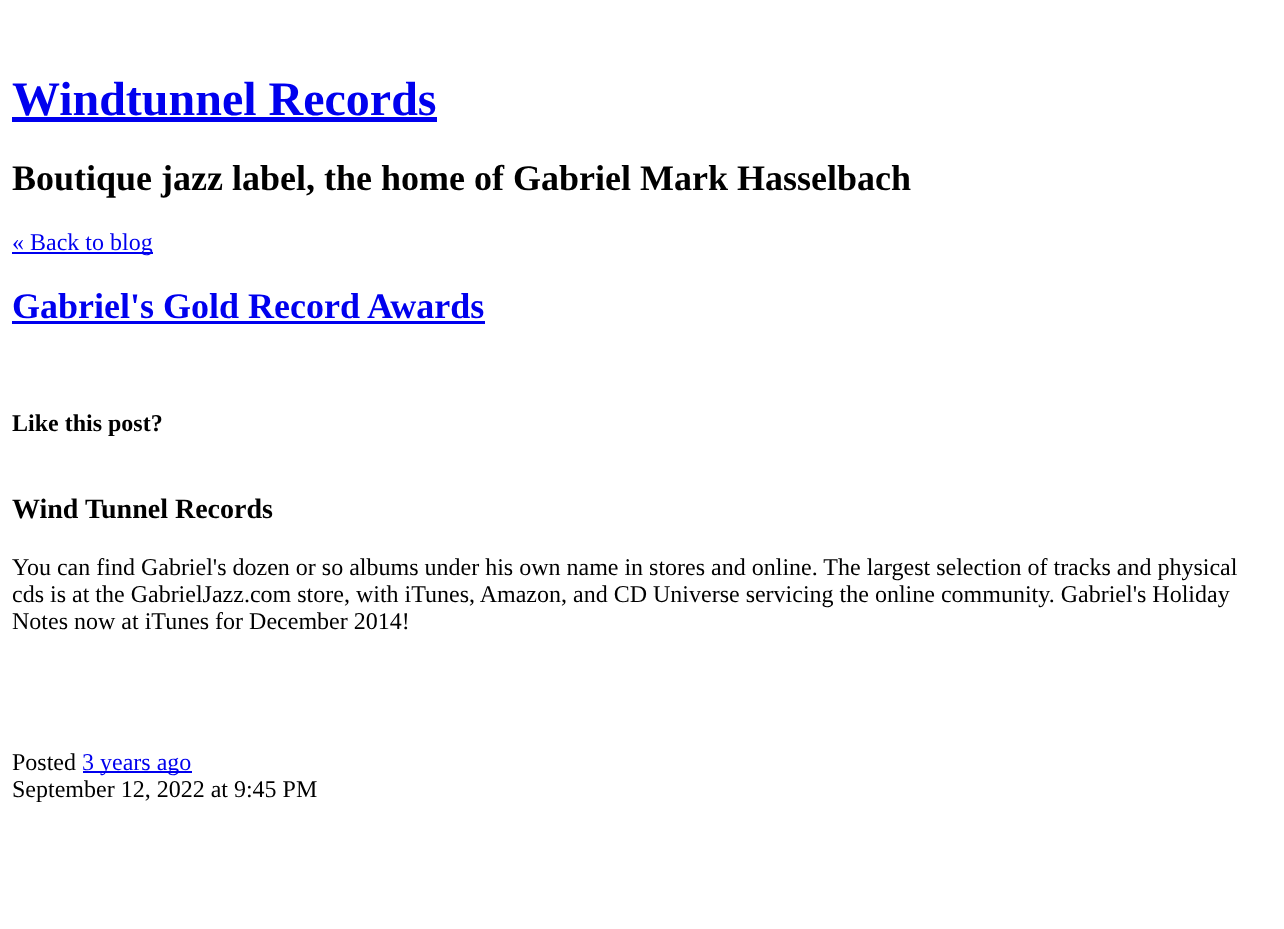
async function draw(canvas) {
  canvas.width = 1284;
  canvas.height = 929;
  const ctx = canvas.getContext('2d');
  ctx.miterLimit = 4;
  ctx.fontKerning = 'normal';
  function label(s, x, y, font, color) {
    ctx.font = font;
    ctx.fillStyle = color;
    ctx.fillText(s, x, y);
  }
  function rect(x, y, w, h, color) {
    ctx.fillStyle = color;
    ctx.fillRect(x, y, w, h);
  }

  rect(0, 0, 1284, 929, '#fff');
  label('Windtunnel Records', 12, 115, 'bold 48px Liberation Serif', '#00e');
  rect(12, 117, 425, 5, '#00e');
  label('Boutique jazz label, the home of Gabriel Mark Hasselbach', 12, 190, 'bold 36px Liberation Serif', '#000');
  rect(12, 252, 141, 2, '#00e');
  label('« Back to blog', 12, 250, '24px Liberation Serif', '#00e');
  label('Gabriel\'s Gold Record Awards', 12, 318, 'bold 36px Liberation Serif', '#00e');
  rect(12, 321, 473, 3, '#00e');
  label('Like this post?', 12, 431, 'bold 24px Liberation Serif', '#000');
  label('Wind Tunnel Records', 12, 518, 'bold 28px Liberation Serif', '#000');
  label('You can find Gabriel\'s dozen or so albums under his own name in stores and online. The largest selection of tracks and physical', 12, 575, '24px Liberation Serif', '#000');
  label('cds is at the GabrielJazz.com store, with iTunes, Amazon, and CD Universe servicing the online community. Gabriel\'s Holiday', 12, 602, '24px Liberation Serif', '#000');
  label('Notes now at iTunes for December 2014!', 12, 629, '24px Liberation Serif', '#000');
  label('Posted', 12, 770, '24px Liberation Serif', '#000');
  rect(83, 771, 109, 2, '#00e');
  label('3 years ago', 82, 770, '24px Liberation Serif', '#00e');
  label('September 12, 2022 at 9:45 PM', 12, 797, '24px Liberation Serif', '#000');
}

draw(document.querySelector('canvas'));
